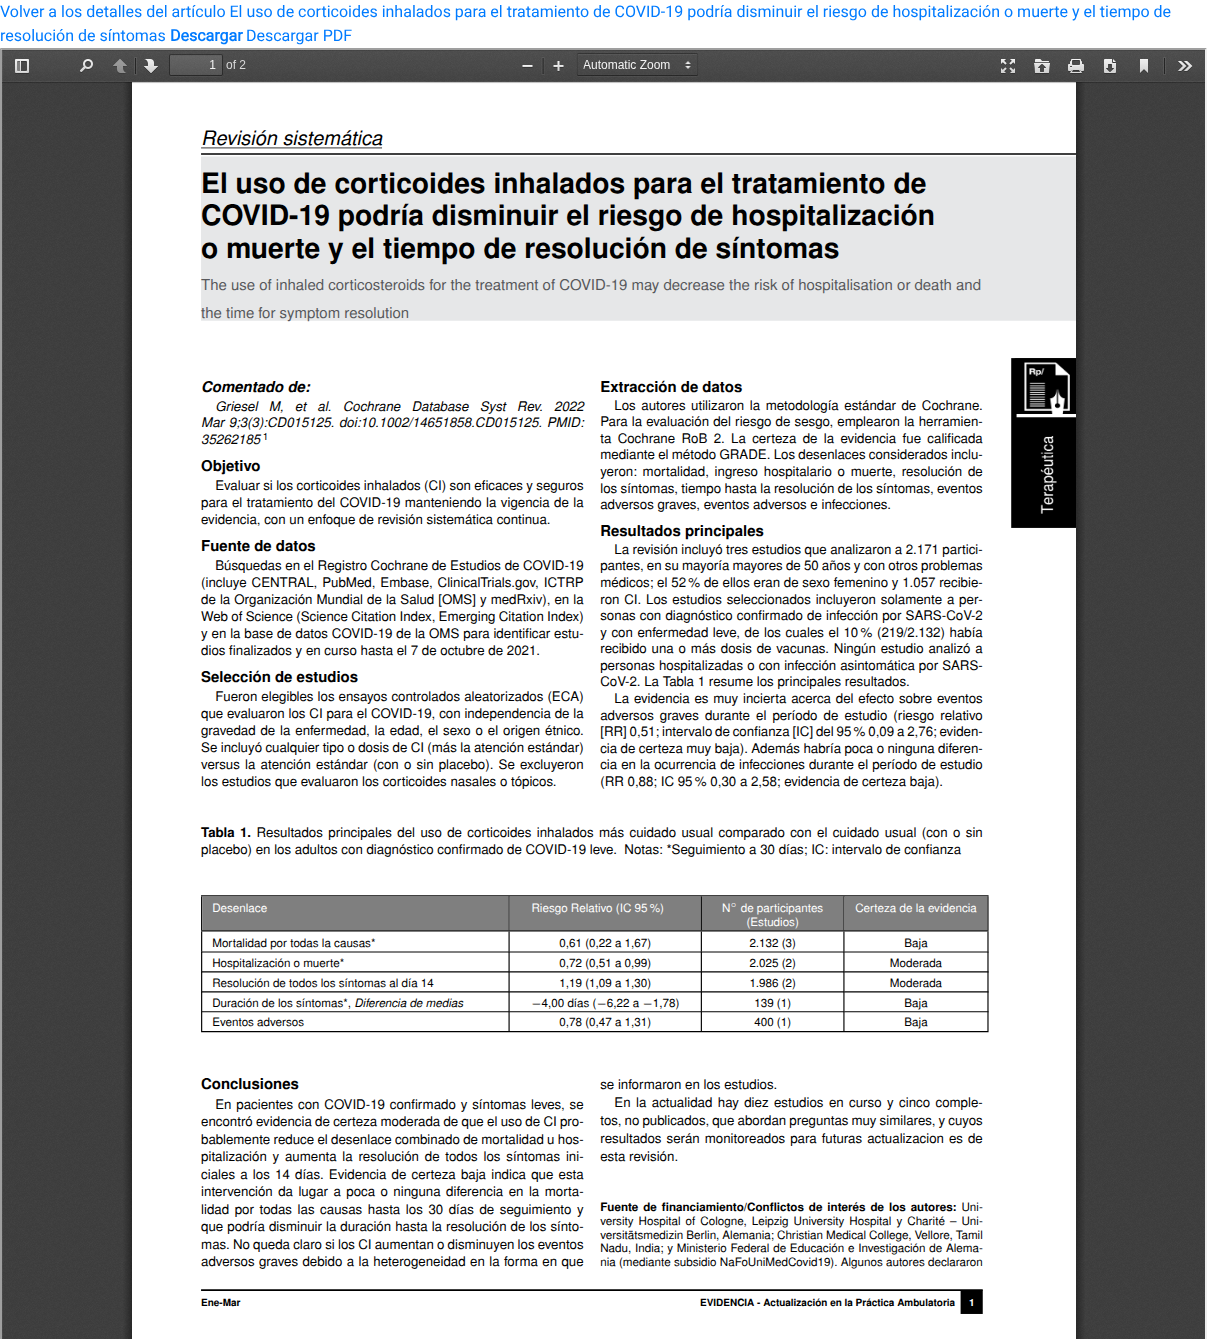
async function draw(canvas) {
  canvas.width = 1207;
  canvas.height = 1339;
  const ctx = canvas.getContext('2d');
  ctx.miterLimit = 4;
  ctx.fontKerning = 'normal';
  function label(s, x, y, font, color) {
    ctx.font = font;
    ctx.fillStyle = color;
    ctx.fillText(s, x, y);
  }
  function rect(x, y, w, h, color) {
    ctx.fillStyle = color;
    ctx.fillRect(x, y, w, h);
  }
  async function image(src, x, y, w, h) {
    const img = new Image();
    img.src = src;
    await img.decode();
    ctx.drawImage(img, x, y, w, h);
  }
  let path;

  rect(0, 0, 1207, 1339, '#fff');
  label('Volver a los detalles del artículo El uso de corticoides inhalados para el tratamiento de COVID-19 podría disminuir el riesgo de hospitalización o muerte y el tiempo de', 0, 17, '16px Roboto', '#007bff');
  label('resolución de síntomas', 0, 41, '16px Roboto', '#007bff');
  label('Descargar', 170, 41, 'bold 16px Roboto', '#007bff');
  label('Descargar PDF', 246, 41, '16px Roboto', '#007bff');
  ctx.fillStyle = '#9f9f9f';
  path = new Path2D('M0 48H1207L1205 50H2Z');
  ctx.fill(path);
  path = new Path2D('M0 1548V48L2 50V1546Z');
  ctx.fill(path);
  await image('assets/img1.png', 2, 50, 1203, 1289);
  ctx.fillStyle = '#eee';
  path = new Path2D('M1207 48V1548L1205 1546V50Z');
  ctx.fill(path);
}

draw(document.querySelector('canvas'));
